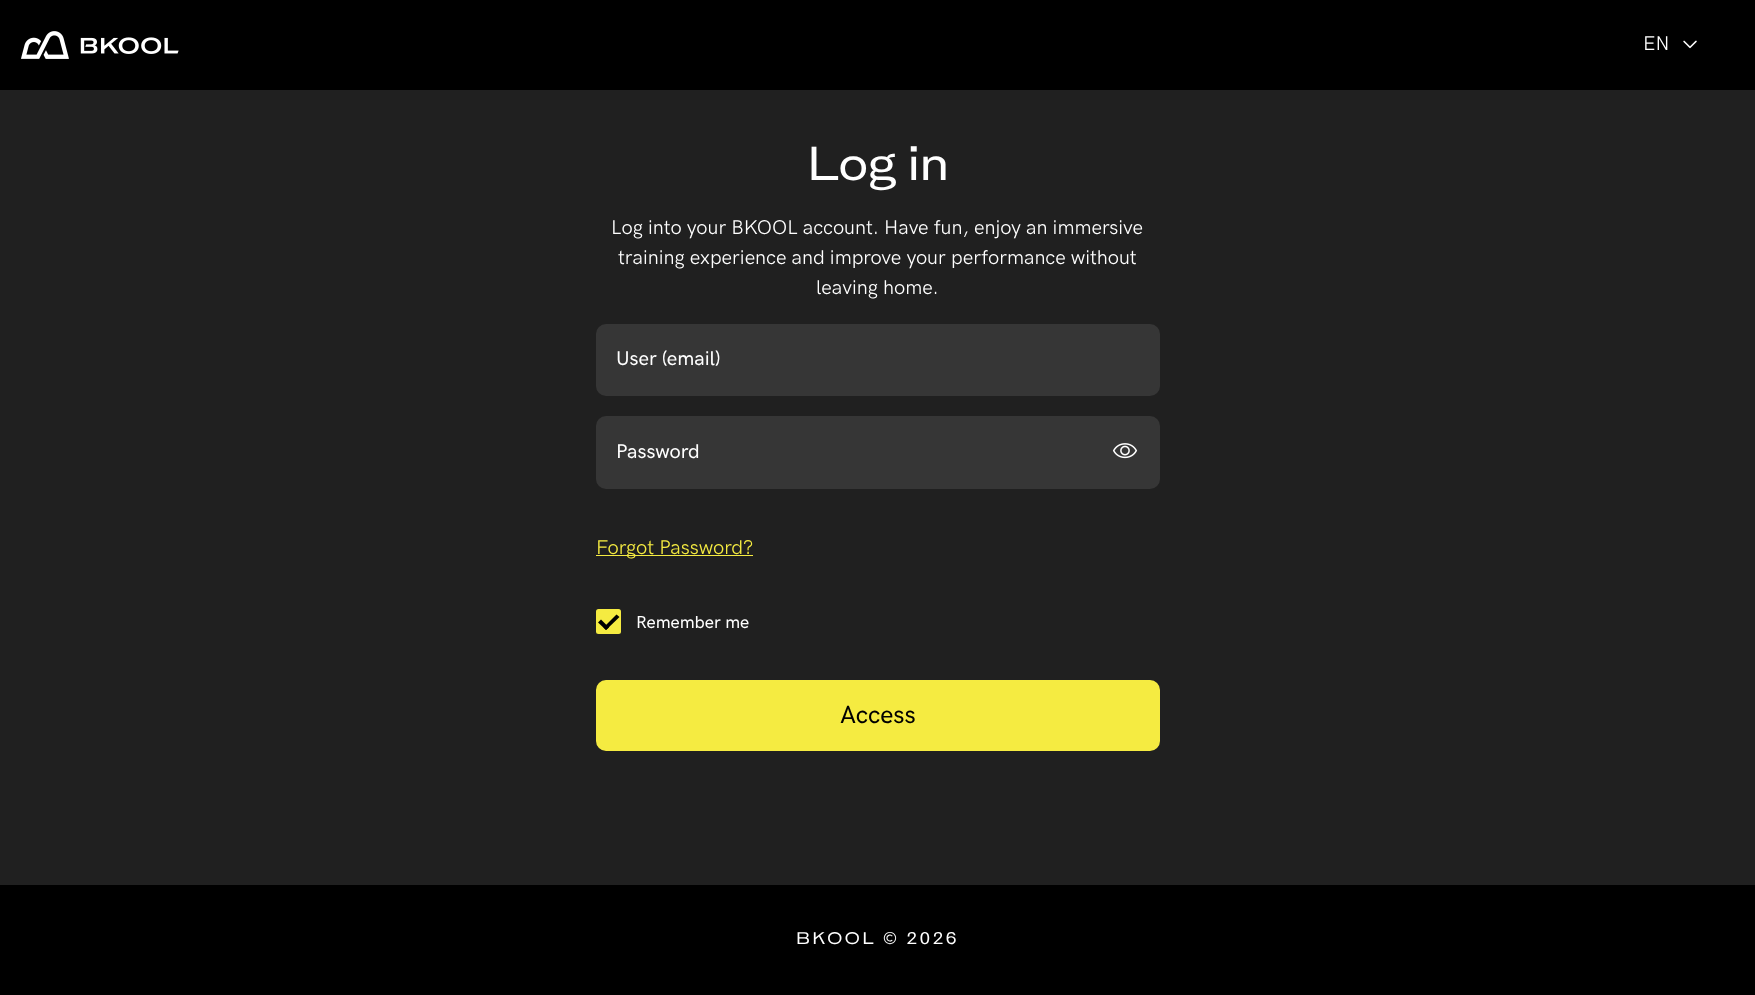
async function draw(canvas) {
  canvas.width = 1755;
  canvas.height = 995;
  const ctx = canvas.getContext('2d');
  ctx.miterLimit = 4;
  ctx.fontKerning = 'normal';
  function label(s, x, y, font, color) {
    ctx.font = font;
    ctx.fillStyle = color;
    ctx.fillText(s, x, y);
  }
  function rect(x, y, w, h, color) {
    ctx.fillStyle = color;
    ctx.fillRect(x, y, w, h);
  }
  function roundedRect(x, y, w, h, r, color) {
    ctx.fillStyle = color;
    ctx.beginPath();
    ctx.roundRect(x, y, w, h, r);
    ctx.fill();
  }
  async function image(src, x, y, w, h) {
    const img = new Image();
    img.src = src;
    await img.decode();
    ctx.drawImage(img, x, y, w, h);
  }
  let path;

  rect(0, 0, 1755, 995, '#202020');
  rect(0, 0, 1755, 90, '#000');
  await image('assets/img1.png', 21, 31, 158, 28);
  label('EN', 1643, 50, '20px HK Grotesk', '#fff');
  await image('assets/img2.png', 1683, 40, 14, 9);
  label('Log in', 807, 180, '500 45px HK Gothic', '#fff');
  label('Log into your BKOOL account. Have fun, enjoy an immersive', 611, 234, '20px HK Grotesk', '#fff');
  label('training experience and improve your performance without', 618, 264, '20px HK Grotesk', '#fff');
  label('leaving home.', 816, 294, '20px HK Grotesk', '#fff');
  roundedRect(596, 324, 564, 72, 10, '#363636');
  label('User (email)', 616, 365, '500 20px HK Grotesk', '#fff');
  roundedRect(596, 416, 564, 73, 10, '#363636');
  label('Password', 616, 458, '500 20px HK Grotesk', '#fff');
  await image('assets/img3.png', 1112, 443, 26, 16);
  rect(596, 555, 157, 1, '#f5eb41');
  label('Forgot Password?', 596, 554, '20px HK Grotesk', '#f5eb41');
  roundedRect(596, 609, 25, 25, 2.5, '#f5eb41');
  ctx.fillStyle = '#000';
  path = new Path2D('M603.5 627.5L616.5 614.5L619.5 617L606 630Z');
  ctx.fill(path);
  path = new Path2D('M598 622.5L601 619.5L609 627.5L606 630Z');
  ctx.fill(path);
  label('Remember me', 636, 628, '500 17.5px HK Grotesk', '#fff');
  ctx.fillStyle = '#f5eb41';
  ctx.beginPath();
  ctx.roundRect(597.5, 681.5, 561, 68, 8.5);
  ctx.fill();
  ctx.strokeStyle = '#f5eb41';
  ctx.lineWidth = 3;
  ctx.stroke();
  label('Access', 840, 723, '500 25px HK Grotesk', '#000');
  rect(0, 885, 1755, 110, '#000');
  ctx.letterSpacing = '2.5px';
  label('BKOOL © 2026', 796, 944, '500 16px HK Gothic', '#fff');
}

draw(document.querySelector('canvas'));
